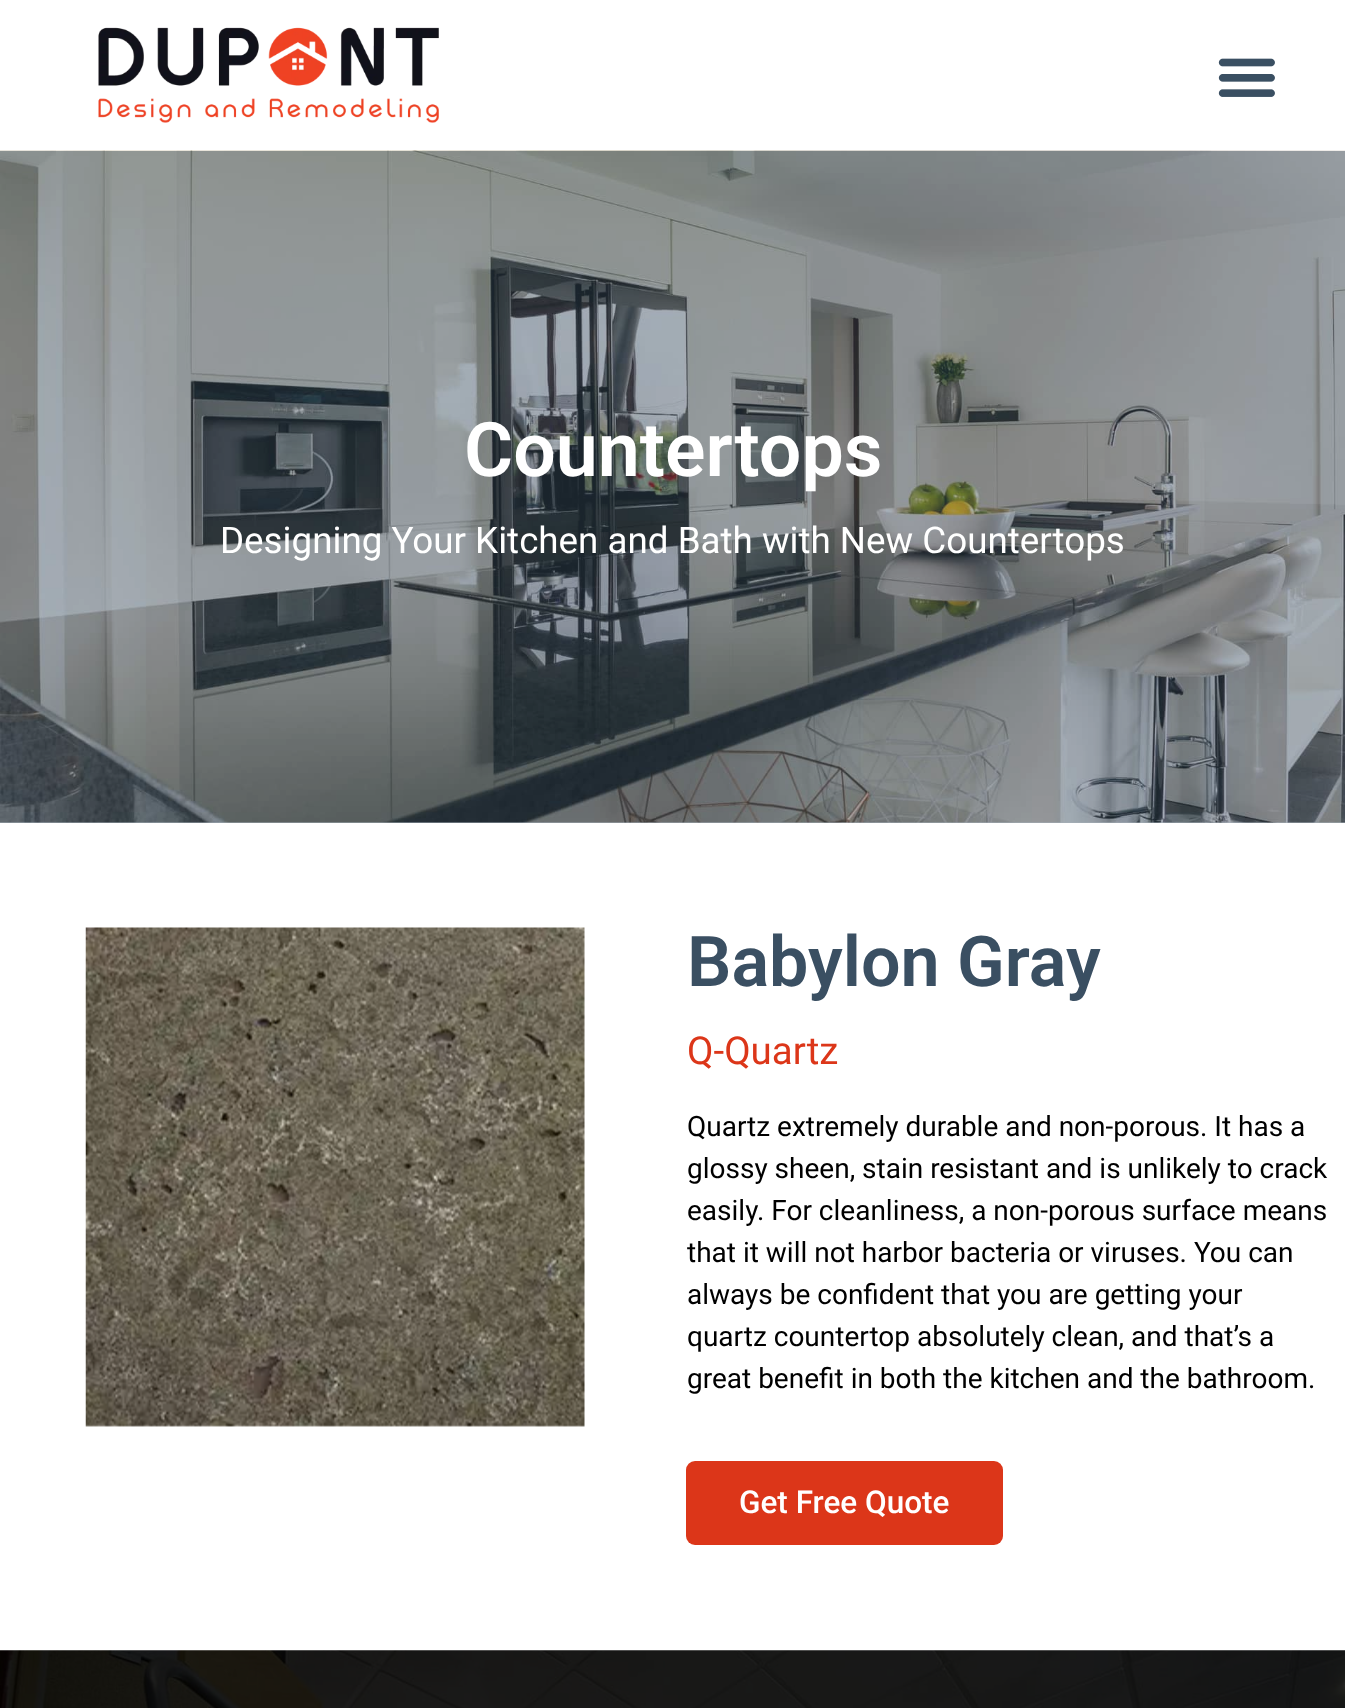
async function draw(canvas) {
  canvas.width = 1345;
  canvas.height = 1708;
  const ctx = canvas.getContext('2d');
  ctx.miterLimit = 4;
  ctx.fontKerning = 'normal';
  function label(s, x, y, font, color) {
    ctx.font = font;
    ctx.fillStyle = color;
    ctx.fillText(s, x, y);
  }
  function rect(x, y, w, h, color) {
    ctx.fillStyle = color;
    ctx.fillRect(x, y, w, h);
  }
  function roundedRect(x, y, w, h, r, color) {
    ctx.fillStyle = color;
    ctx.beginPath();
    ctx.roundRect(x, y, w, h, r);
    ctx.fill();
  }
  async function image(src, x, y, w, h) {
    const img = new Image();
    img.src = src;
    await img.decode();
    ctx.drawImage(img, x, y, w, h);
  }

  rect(0, 0, 1345, 1708, '#fff');
  await image('assets/img1.png', 98, 27, 341, 96);
  await image('assets/img2.png', 1218, 58, 57, 39);
  await image('assets/img3.png', 0, 150, 1345, 673);
  rect(0, 151, 1345, 672, '#3a4f6273');
  label('Countertops', 464, 476, '600 75.25px Roboto', '#fff');
  label('Designing Your Kitchen and Bath with New Countertops', 220, 553, '36.75px Roboto', '#fff');
  await image('assets/img4.png', 85, 927, 500, 500);
  label('Babylon Gray', 687, 986, '600 70px Roboto', '#3a4f62');
  label('Q-Quartz', 687, 1064, '38.5px Roboto', '#dc3619');
  label('Quartz extremely durable and non-porous. It has a', 687, 1136, '28px Roboto', '#000');
  label('glossy sheen, stain resistant and is unlikely to crack', 687, 1178, '28px Roboto', '#000');
  label('easily. For cleanliness, a non-porous surface means', 687, 1220, '28px Roboto', '#000');
  label('that it will not harbor bacteria or viruses. You can', 687, 1262, '28px Roboto', '#000');
  label('always be confident that you are getting your', 687, 1304, '28px Roboto', '#000');
  label('quartz countertop absolutely clean, and that’s a', 687, 1346, '28px Roboto', '#000');
  label('great benefit in both the kitchen and the bathroom.', 687, 1388, '28px Roboto', '#000');
  roundedRect(686, 1461, 317, 84, 9, '#dc3619');
  label('Get Free Quote', 739, 1513, '500 31.5px Roboto', '#fff');
  await image('assets/img5.png', 0, 1650, 1345, 58);
}

draw(document.querySelector('canvas'));
